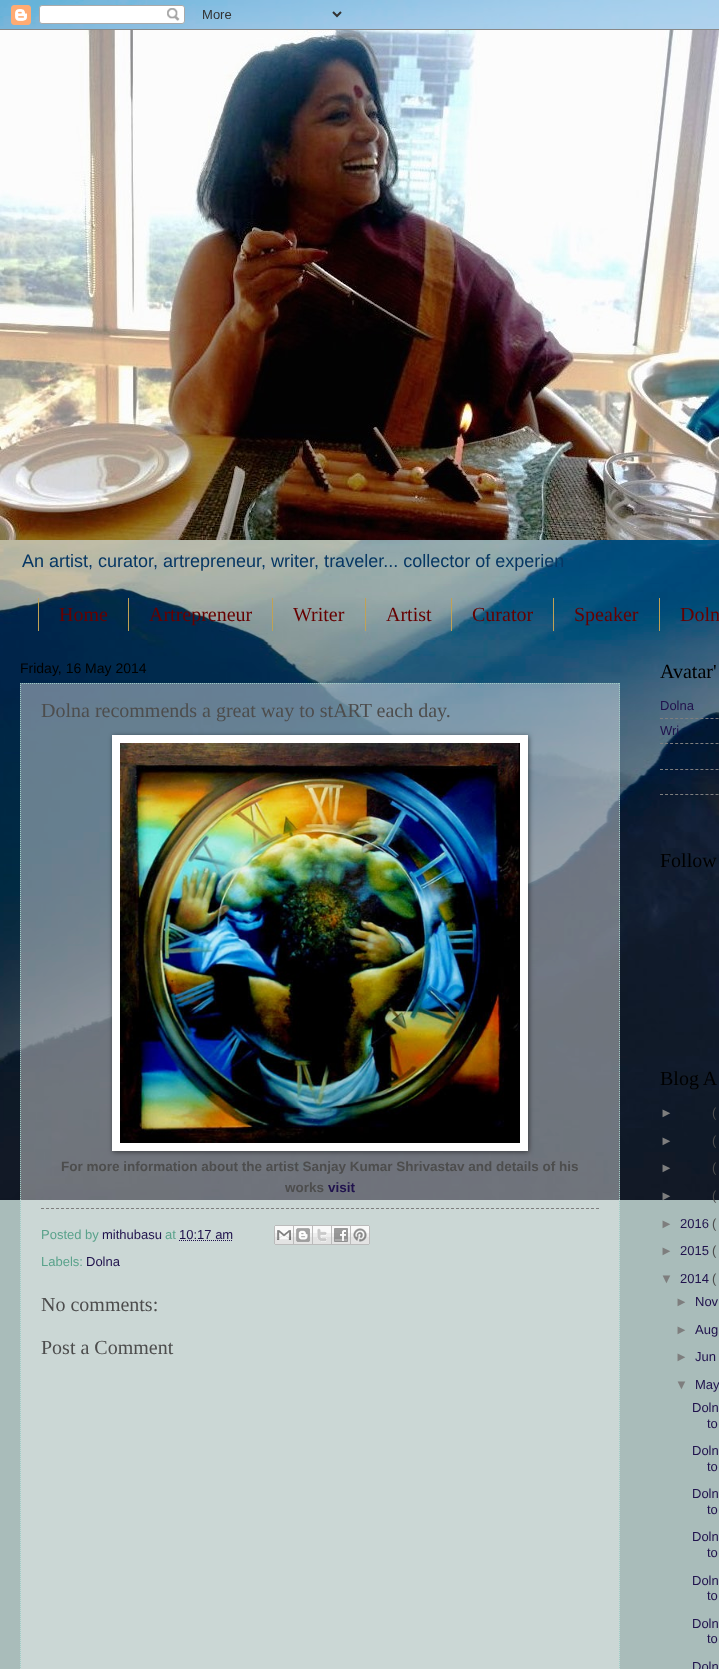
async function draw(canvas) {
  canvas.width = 719;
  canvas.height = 1669;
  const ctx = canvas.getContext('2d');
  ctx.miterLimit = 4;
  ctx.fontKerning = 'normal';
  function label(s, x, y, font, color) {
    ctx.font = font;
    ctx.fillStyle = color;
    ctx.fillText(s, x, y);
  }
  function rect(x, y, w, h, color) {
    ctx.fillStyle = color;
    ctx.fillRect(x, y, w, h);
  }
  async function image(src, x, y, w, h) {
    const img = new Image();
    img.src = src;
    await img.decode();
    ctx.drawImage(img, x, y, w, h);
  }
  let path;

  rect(0, 0, 719, 1669, '#a9bcba');
  await image('assets/img1.png', 0, 0, 719, 1200);
  await image('assets/img2.png', 0, 0, 719, 30);
  await image('assets/img3.png', 0, 30, 719, 510);
  label('An artist, curator, artrepreneur, writer, traveler... collector of experien', 22, 567, '18px Liberation Sans', '#073763');
  rect(128, 598, 1, 33, '#c0a154');
  rect(38, 598, 1, 33, '#c0a154');
  label('Home', 59, 621, '20px Liberation Serif', '#600');
  rect(272, 598, 1, 33, '#c0a154');
  label('Artrepreneur', 149, 621, '20px Liberation Serif', '#600');
  rect(365, 598, 1, 33, '#c0a154');
  label('Writer', 293, 621, '20px Liberation Serif', '#600');
  rect(451, 598, 1, 33, '#c0a154');
  label('Artist', 386, 621, '20px Liberation Serif', '#600');
  rect(553, 598, 1, 33, '#c0a154');
  label('Curator', 472, 621, '20px Liberation Serif', '#600');
  rect(659, 598, 1, 33, '#c0a154');
  label('Speaker', 574, 621, '20px Liberation Serif', '#600');
  label('Doln', 680, 621, '20px Liberation Serif', '#600');
  label('Friday, 16 May 2014', 20, 673, '14px Liberation Sans', '#000');
  rect(20, 683, 600, 986, '#ffffff66');
  path = new Path2D('M20 683.5H620');
  ctx.strokeStyle = '#9dcec6';
  ctx.setLineDash([1, 1]);
  ctx.stroke(path);
  path = new Path2D('M619.5 683V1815');
  ctx.stroke(path);
  path = new Path2D('M20.5 683V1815');
  ctx.stroke(path);
  label('Dolna recommends a great way to stART each day.', 41, 717, '20px Liberation Serif', '#4d4d4d');
  ctx.fillStyle = '#00000080';
  ctx.filter = 'blur(2.5px)';
  ctx.beginPath();
  ctx.rect(113, 736, 416, 416);
  ctx.fill();
  ctx.filter = 'none';
  rect(112, 735, 416, 416, '#fff');
  await image('assets/img4.png', 120, 743, 400, 400);
  label('For more information about the artist Sanjay Kumar Shrivastav and details of his', 61, 1171, 'bold 13.5px Liberation Sans', '#4d4d4d');
  label('works', 285, 1192, 'bold 13.5px Liberation Sans', '#4d4d4d');
  label('visit', 328, 1192, 'bold 13.5px Liberation Sans', '#20124d');
  path = new Path2D('M41 1208.5H599');
  ctx.strokeStyle = '#7e7e7e';
  ctx.setLineDash([3, 2]);
  ctx.stroke(path);
  label('Posted by', 41, 1239, '13px Liberation Sans', '#5aa28b');
  label('mithubasu', 102, 1239, '13px Liberation Sans', '#20124d');
  label('at', 165, 1239, '13px Liberation Sans', '#5aa28b');
  label('10:17 am', 179, 1239, '13px Liberation Sans', '#20124d');
  path = new Path2D('M179 1240.5H233');
  ctx.strokeStyle = '#20124d';
  ctx.setLineDash([1, 1]);
  ctx.stroke(path);
  await image('assets/img5.png', 274, 1225, 20, 20);
  await image('assets/img6.png', 294, 1225, 19, 20);
  await image('assets/img7.png', 313, 1225, 19, 20);
  await image('assets/img8.png', 332, 1225, 19, 20);
  await image('assets/img9.png', 351, 1225, 19, 20);
  label('Labels:', 41, 1266, '13px Liberation Sans', '#5aa28b');
  label('Dolna', 86, 1266, '13px Liberation Sans', '#20124d');
  label('No comments:', 41, 1311, '20px Liberation Serif', '#4d4d4d');
  label('Post a Comment', 41, 1354, '20px Liberation Serif', '#4d4d4d');
  label('Avatar\'', 660, 678, '20px Liberation Serif', '#000');
  label('Dolna', 660, 710, '13px Liberation Sans', '#20124d');
  path = new Path2D('M660 718.5H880M660 743.5H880M660 769.5H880');
  ctx.strokeStyle = '#7e7e7e';
  ctx.setLineDash([3, 2.05]);
  ctx.stroke(path);
  label('Wri', 660, 735, '13px Liberation Sans', '#20124d');
  path = new Path2D('M660 794.5H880');
  ctx.stroke(path);
  label('Follow', 660, 867, '20px Liberation Serif', '#000');
  label('Blog A', 660, 1085, '20px Liberation Serif', '#000');
  label('►', 660, 1117, '13px Liberation Sans', '#7e7e7e');
  label('(', 712, 1117, '13px Liberation Sans', '#4d4d4d');
  label('►', 660, 1145, '13px Liberation Sans', '#7e7e7e');
  label('(', 712, 1145, '13px Liberation Sans', '#4d4d4d');
  label('►', 660, 1172, '13px Liberation Sans', '#7e7e7e');
  label('(', 712, 1172, '13px Liberation Sans', '#4d4d4d');
  label('►', 660, 1200, '13px Liberation Sans', '#7e7e7e');
  label('(', 712, 1200, '13px Liberation Sans', '#4d4d4d');
  label('►', 660, 1228, '13px Liberation Sans', '#7e7e7e');
  label('2016', 680, 1228, '13px Liberation Sans', '#20124d');
  label('(', 712, 1228, '13px Liberation Sans', '#4d4d4d');
  label('►', 660, 1255, '13px Liberation Sans', '#7e7e7e');
  label('2015', 680, 1255, '13px Liberation Sans', '#20124d');
  label('(', 712, 1255, '13px Liberation Sans', '#4d4d4d');
  label('▼', 660, 1283, '13px Liberation Sans', '#7e7e7e');
  label('2014', 680, 1283, '13px Liberation Sans', '#20124d');
  label('(', 712, 1283, '13px Liberation Sans', '#4d4d4d');
  label('►', 675, 1306, '13px Liberation Sans', '#7e7e7e');
  label('Nov', 695, 1306, '13px Liberation Sans', '#20124d');
  label('►', 675, 1334, '13px Liberation Sans', '#7e7e7e');
  label('Aug', 695, 1334, '13px Liberation Sans', '#20124d');
  label('►', 675, 1361, '13px Liberation Sans', '#7e7e7e');
  label('Jun', 695, 1361, '13px Liberation Sans', '#20124d');
  label('▼', 675, 1389, '13px Liberation Sans', '#7e7e7e');
  label('May', 695, 1389, '13px Liberation Sans', '#20124d');
  label('Doln', 692, 1412, '13px Liberation Sans', '#20124d');
  label('to', 707, 1428, '13px Liberation Sans', '#20124d');
  label('Doln', 692, 1455, '13px Liberation Sans', '#20124d');
  label('to', 707, 1471, '13px Liberation Sans', '#20124d');
  label('Doln', 692, 1498, '13px Liberation Sans', '#20124d');
  label('to', 707, 1514, '13px Liberation Sans', '#20124d');
  label('Doln', 692, 1541, '13px Liberation Sans', '#20124d');
  label('to', 707, 1557, '13px Liberation Sans', '#20124d');
  label('Doln', 692, 1585, '13px Liberation Sans', '#20124d');
  label('to', 707, 1600, '13px Liberation Sans', '#20124d');
  label('Doln', 692, 1628, '13px Liberation Sans', '#20124d');
  label('to', 707, 1643, '13px Liberation Sans', '#20124d');
  label('Doln', 692, 1671, '13px Liberation Sans', '#20124d');
}

draw(document.querySelector('canvas'));
